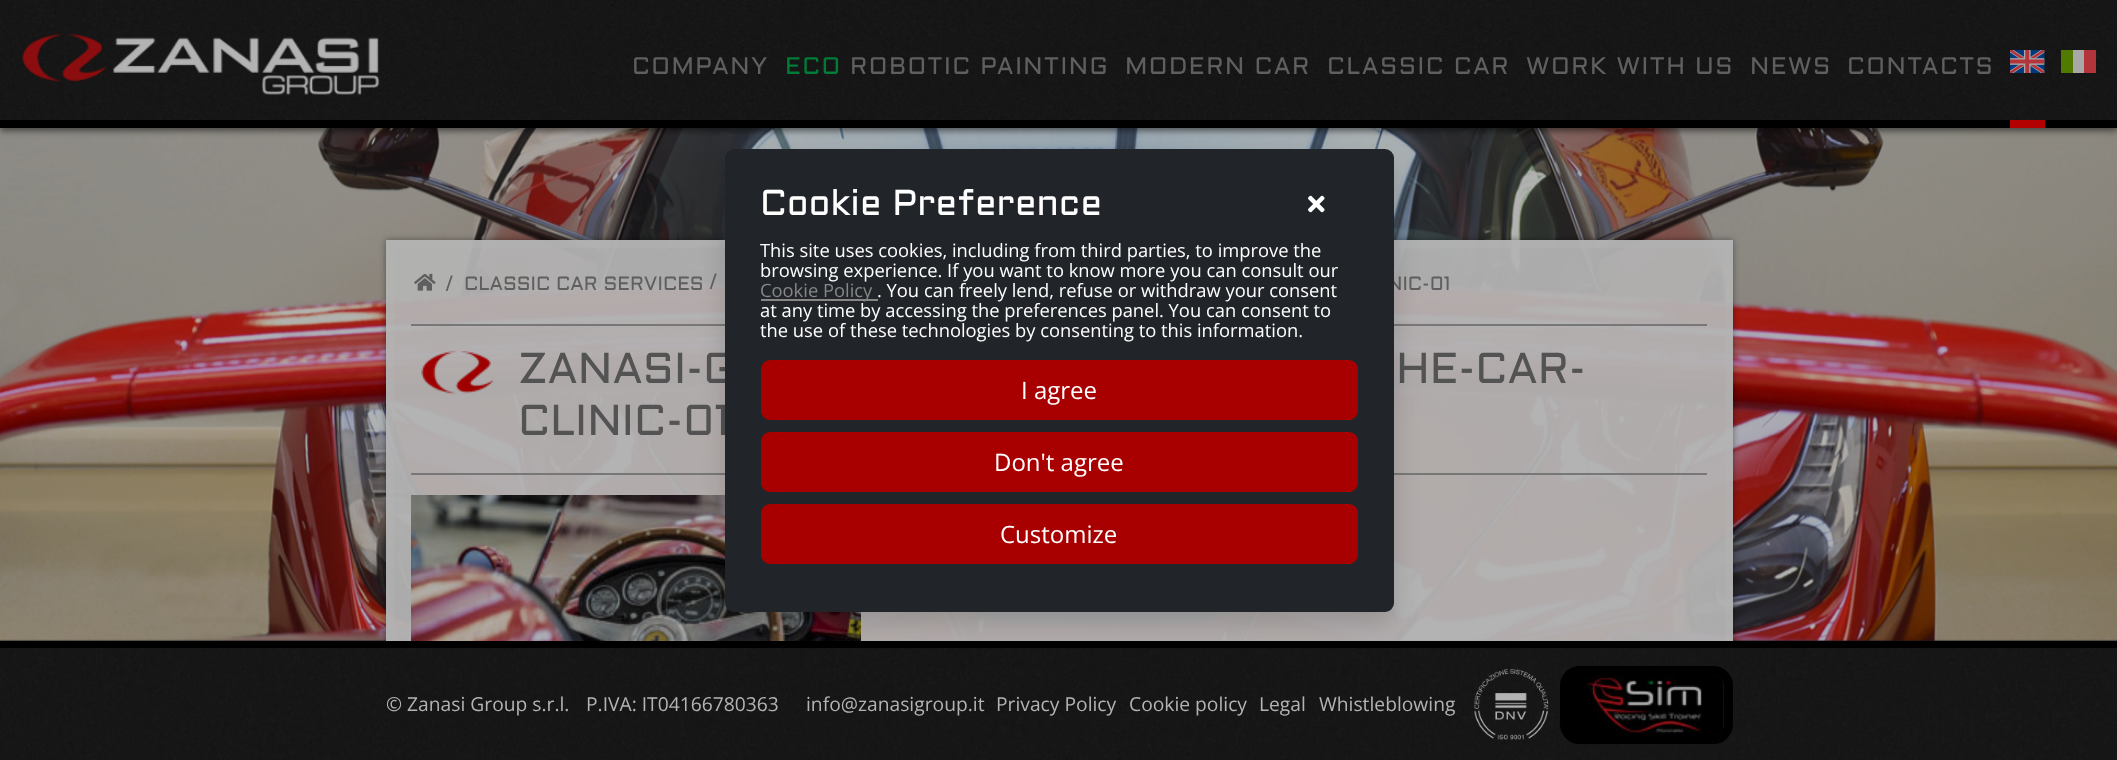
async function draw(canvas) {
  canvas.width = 2117;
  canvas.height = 760;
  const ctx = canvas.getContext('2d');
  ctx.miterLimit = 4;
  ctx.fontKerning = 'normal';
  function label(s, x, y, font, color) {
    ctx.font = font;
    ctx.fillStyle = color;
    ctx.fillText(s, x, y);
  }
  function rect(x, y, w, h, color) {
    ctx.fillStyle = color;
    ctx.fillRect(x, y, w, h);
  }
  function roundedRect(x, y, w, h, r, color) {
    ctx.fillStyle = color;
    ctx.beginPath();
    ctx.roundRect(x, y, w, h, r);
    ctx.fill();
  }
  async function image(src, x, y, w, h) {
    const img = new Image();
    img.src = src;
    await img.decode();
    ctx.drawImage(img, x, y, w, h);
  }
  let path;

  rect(0, 0, 2117, 760, '#171a1d');
  await image('assets/img4.png', 0, 128, 2117, 513);
  ctx.fillStyle = '#00000080';
  ctx.filter = 'blur(3px)';
  ctx.beginPath();
  ctx.rect(0, 3, 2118, 128);
  ctx.fill();
  ctx.filter = 'none';
  await image('assets/img1.png', 0, 0, 2117, 120);
  rect(0, 120, 2117, 8, '#000');
  await image('assets/img2.png', 22, 33, 358, 62);
  ctx.letterSpacing = '1.5px';
  label('COMPANY', 632, 74, '24px Aldrich', '#5f5f5f');
  label('ECO', 785, 74, '24px Aldrich', '#007b38');
  label('ROBOTIC PAINTING', 850, 74, '24px Aldrich', '#5f5f5f');
  label('MODERN CAR', 1125, 74, '24px Aldrich', '#5f5f5f');
  label('CLASSIC CAR', 1327, 74, '24px Aldrich', '#5f5f5f');
  label('WORK WITH US', 1526, 74, '24px Aldrich', '#5f5f5f');
  label('NEWS', 1750, 74, '24px Aldrich', '#5f5f5f');
  label('CONTACTS', 1847, 74, '24px Aldrich', '#5f5f5f');
  rect(2010, 120, 35, 8, '#b30000');
  await image('assets/img3.png', 2010, 50, 35, 23);
  rect(2061, 50, 12, 23, '#517a00');
  rect(2073, 50, 11, 23, '#a8a8a8');
  rect(2084, 50, 12, 23, '#b3353b');
  ctx.save();
  path = new Path2D('M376 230H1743V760H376ZM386 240H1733V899H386Z');
  ctx.clip(path, 'evenodd');
  ctx.fillStyle = '#00000066';
  ctx.filter = 'blur(3px)';
  ctx.beginPath();
  ctx.rect(386, 240, 1347, 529);
  ctx.fill();
  ctx.filter = 'none';
  ctx.restore();
  rect(386, 240, 1347, 401, '#b3b3b3f2');
  ctx.strokeStyle = '#b3b3b366';
  ctx.lineWidth = 8;
  ctx.strokeRect(390, 244, 1339, 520);
  await image('assets/img5.png', 414, 273, 22, 18);
  ctx.letterSpacing = '0px';
  label('/', 445, 290, '19.25px Aldrich', '#5f5f5f');
  label('CLASSIC CAR SERVICES', 464, 290, '19.25px Aldrich', '#5f5f5f');
  label('/', 709, 288, '19.25px Aldrich', '#5f5f5f');
  label('NIC-01', 1387, 290, '19.25px Aldrich', '#5f5f5f');
  rect(411, 324, 1296, 2, '#777');
  rect(411, 473, 1296, 2, '#777');
  await image('assets/img6.png', 421, 351, 73, 44);
  label('ZANASI-G', 518, 383, '43.25px Aldrich', '#535353');
  label('HE-CAR-', 1396, 383, '43.25px Aldrich', '#535353');
  label('CLINIC-01', 518, 435, '43.25px Aldrich', '#535353');
  await image('assets/img7.png', 411, 495, 450, 146);
  await image('assets/img8.png', 0, 648, 2117, 112);
  rect(0, 641, 2117, 7, '#000');
  await image('assets/img9.png', 1474, 668, 75, 72);
  ctx.beginPath();
  ctx.roundRect(1564.5, 670.5, 164, 69, 15.5);
  ctx.strokeStyle = '#000';
  ctx.lineWidth = 9;
  ctx.stroke();
  label('© Zanasi Group s.r.l.', 386, 711, '19.25px Open Sans', '#b3b3b3');
  label('P.IVA: IT04166780363', 586, 711, '19.25px Open Sans', '#b3b3b3');
  label('info@zanasigroup.it', 806, 711, '19.25px Open Sans', '#b3b3b3');
  label('Privacy Policy', 996, 711, '19.25px Open Sans', '#b3b3b3');
  label('Cookie policy', 1129, 711, '19.25px Open Sans', '#b3b3b3');
  label('Legal', 1259, 711, '19.25px Open Sans', '#b3b3b3');
  label('Whistleblowing', 1319, 711, '19.25px Open Sans', '#b3b3b3');
  await image('assets/img10.png', 1569, 675, 155, 60);
  ctx.fillStyle = '#00000026';
  ctx.filter = 'blur(12px)';
  ctx.beginPath();
  ctx.roundRect(725, 161, 669, 463, 9);
  ctx.fill();
  ctx.filter = 'none';
  roundedRect(725, 149, 669, 463, 9, '#212529');
  label('Cookie Preference', 760, 215, '36px Aldrich', '#fff');
  await image('assets/img11.png', 1308, 195, 17, 18);
  label('This site uses cookies, including from third parties, to improve the', 760, 257, '18.35px Open Sans', '#fff');
  label('browsing experience. If you want to know more you can consult our', 760, 277, '18.35px Open Sans', '#fff');
  rect(761, 299, 117, 2, '#878787');
  label('Cookie Policy', 760, 297, '18.35px Open Sans', '#878787');
  label('. You can freely lend, refuse or withdraw your consent', 877, 297, '18.35px Open Sans', '#fff');
  label('at any time by accessing the preferences panel. You can consent to', 760, 317, '18.35px Open Sans', '#fff');
  label('the use of these technologies by consenting to this information.', 760, 337, '18.35px Open Sans', '#fff');
  ctx.fillStyle = '#a80000';
  ctx.beginPath();
  ctx.roundRect(762.5, 361.5, 594, 57, 7.5);
  ctx.fill();
  ctx.strokeStyle = '#a80000';
  ctx.lineWidth = 3;
  ctx.stroke();
  label('I agree', 1021, 399, '24px Open Sans', '#fff');
  ctx.fillStyle = '#a80000';
  ctx.beginPath();
  ctx.roundRect(762.5, 433.5, 594, 57, 7.5);
  ctx.fill();
  ctx.stroke();
  label('Don\'t agree', 994, 471, '24px Open Sans', '#fff');
  ctx.fillStyle = '#a80000';
  ctx.beginPath();
  ctx.roundRect(762.5, 505.5, 594, 57, 7.5);
  ctx.fill();
  ctx.stroke();
  label('Customize', 1000, 543, '24px Open Sans', '#fff');
}

draw(document.querySelector('canvas'));
